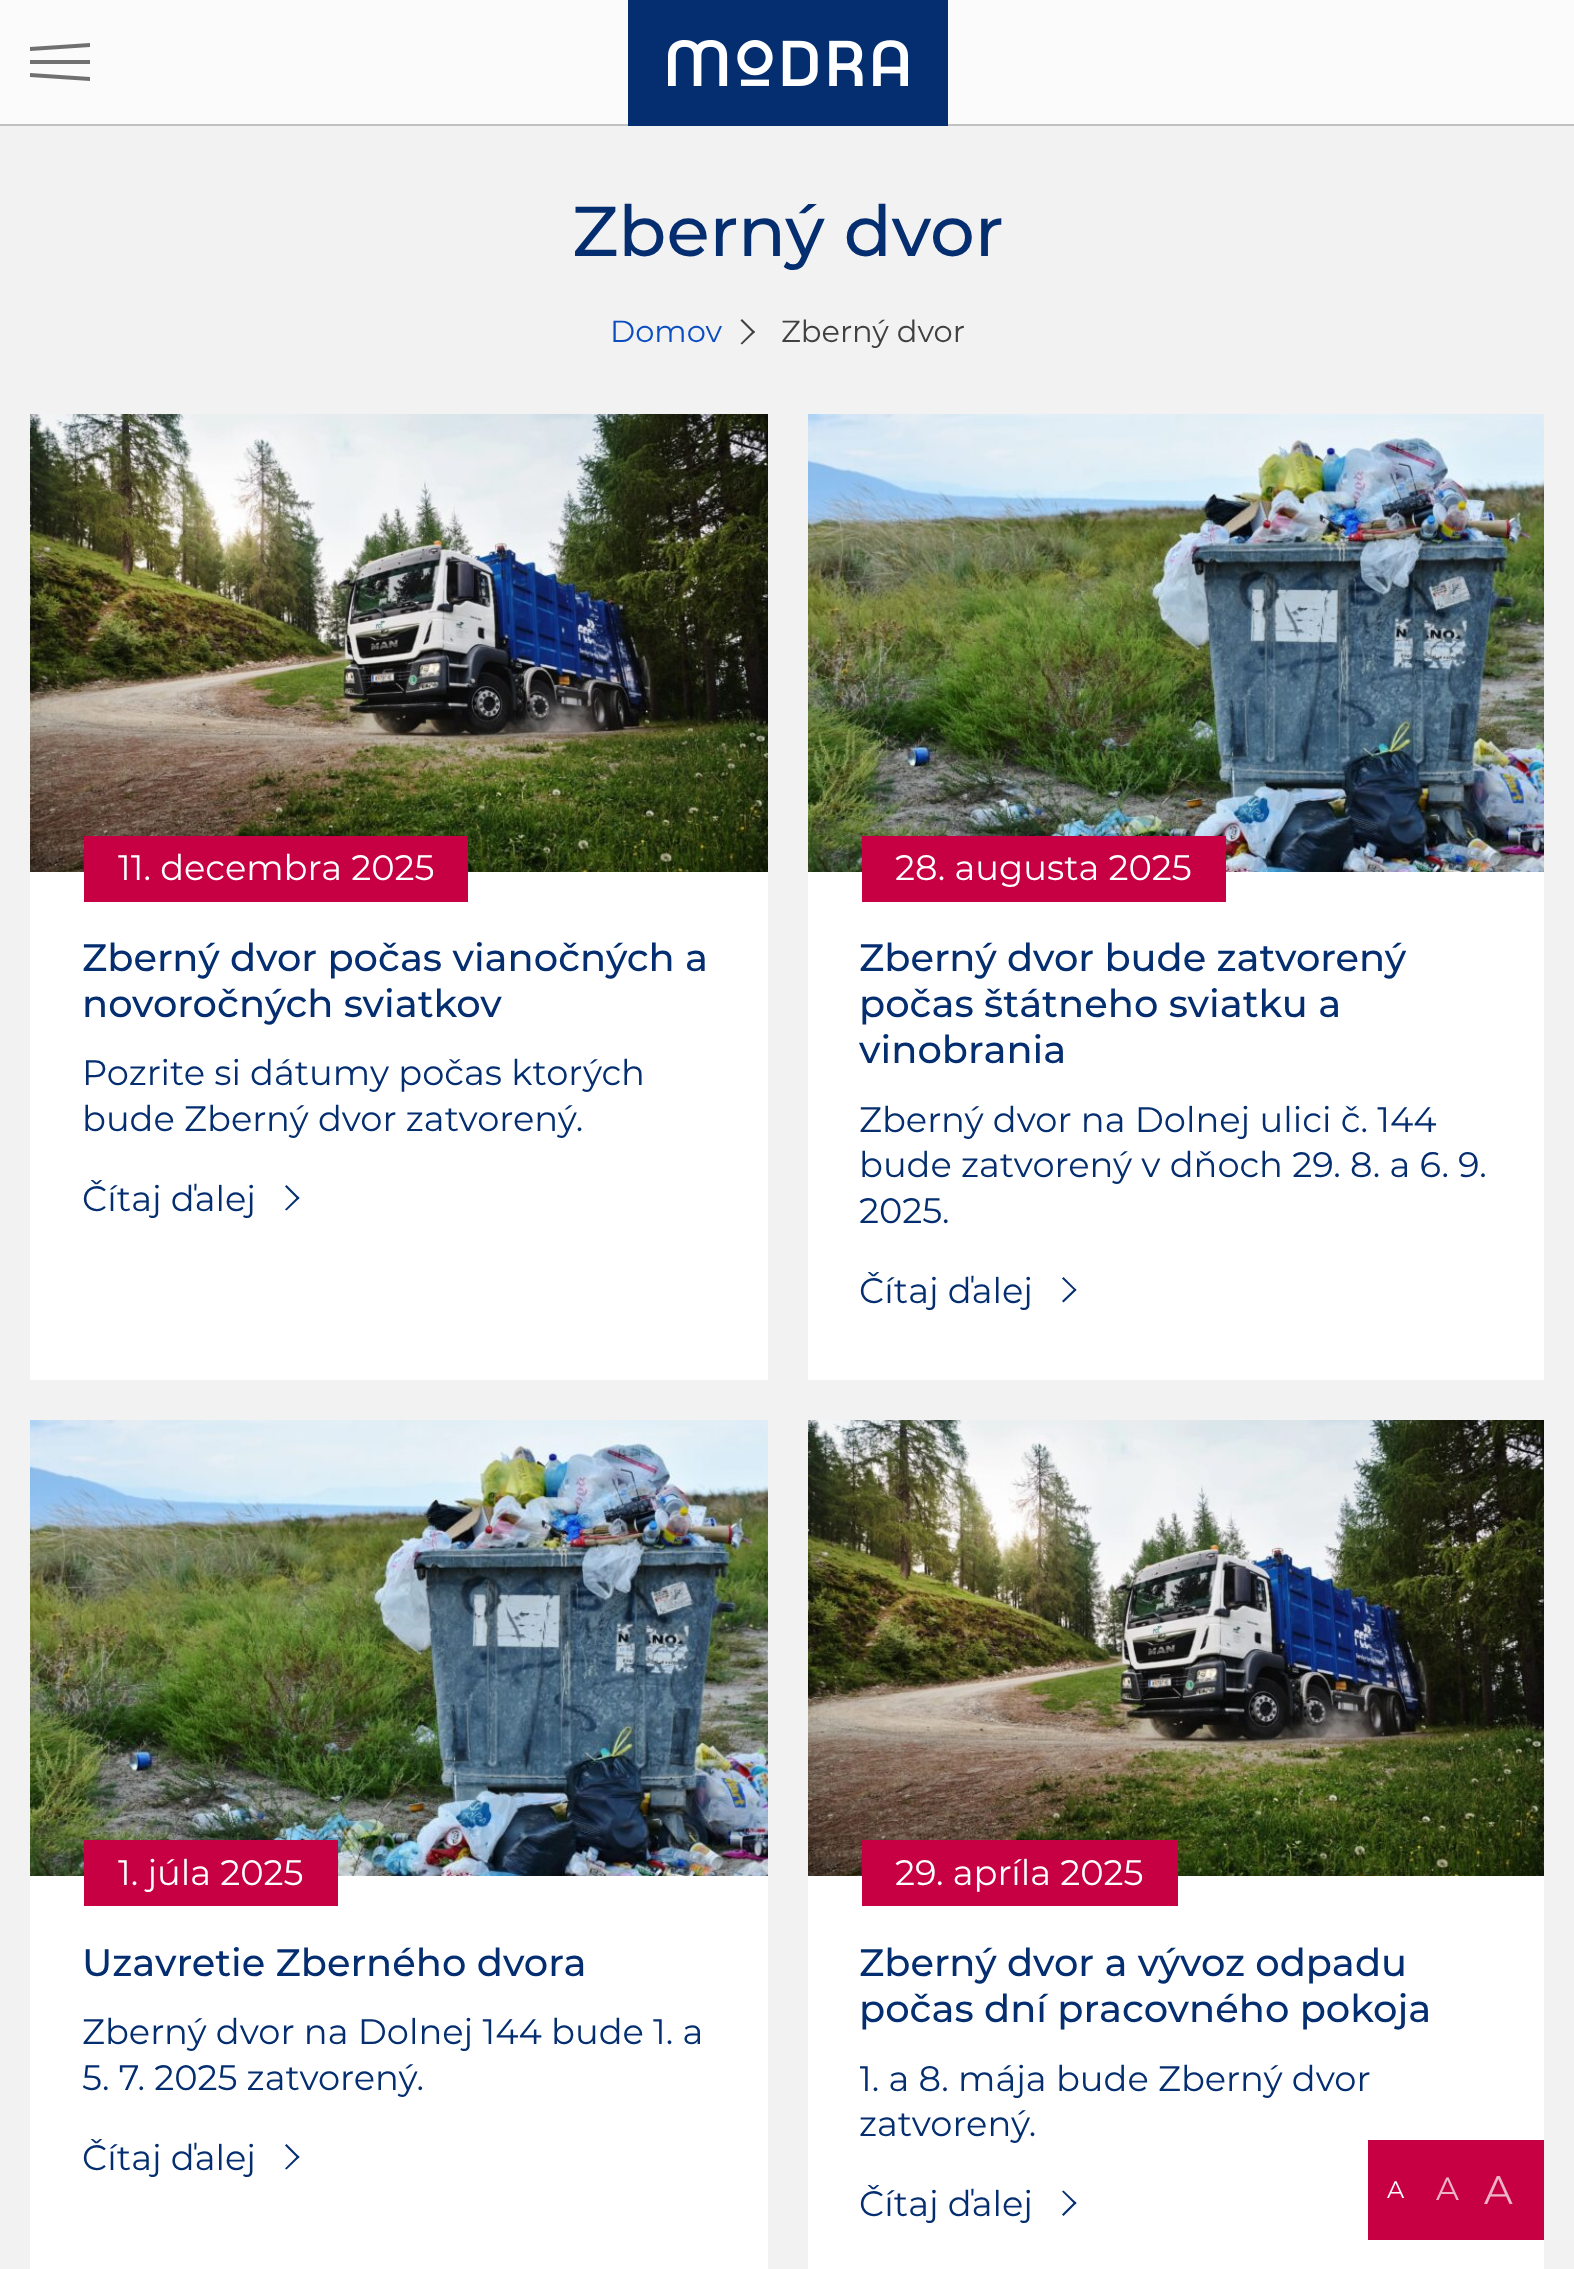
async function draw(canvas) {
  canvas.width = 1574;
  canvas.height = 2269;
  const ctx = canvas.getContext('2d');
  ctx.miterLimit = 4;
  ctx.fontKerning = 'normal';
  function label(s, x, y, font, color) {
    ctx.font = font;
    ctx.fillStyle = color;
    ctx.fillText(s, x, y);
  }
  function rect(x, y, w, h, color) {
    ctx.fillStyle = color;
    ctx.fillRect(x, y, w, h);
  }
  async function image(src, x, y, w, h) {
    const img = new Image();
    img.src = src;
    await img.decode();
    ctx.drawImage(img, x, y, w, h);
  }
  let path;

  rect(0, 0, 1574, 2269, '#f2f2f2');
  rect(0, 0, 1574, 124, '#fbfbfb');
  rect(0, 124, 1574, 2, '#c1c1c1');
  ctx.fillStyle = '#707070';
  path = new Path2D('M30 47L90 43V47L30 51Z');
  ctx.fill(path);
  rect(30, 60, 60, 4, '#707070');
  path = new Path2D('M30 73L90 77V81L30 77Z');
  ctx.fill(path);
  rect(628, 0, 320, 126, '#042e6f');
  await image('assets/img1.png', 668, 40, 240, 46);
  label('Zberný dvor', 572, 256, '500 70.5px Montserrat', '#042e6f');
  label('Domov', 610, 342, '30.5px Montserrat', '#0a4dc1');
  ctx.fillStyle = '#404040';
  path = new Path2D('M742 319L755 332L753.5 333.5L740.5 320.5Z');
  ctx.fill(path);
  path = new Path2D('M753.5 330.5L755 332L742 344.5L740.5 343.5Z');
  ctx.fill(path);
  label('Zberný dvor', 781, 342, '30.5px Montserrat', '#404040');
  rect(30, 872, 738, 508, '#fff');
  await image('assets/img2.png', 30, 414, 738, 458);
  rect(84, 836, 384, 66, '#c60043');
  label('11. decembra 2025', 118, 880, '35.25px Montserrat', '#fff');
  label('Zberný dvor počas vianočných a', 82, 971, '500 38.4px Montserrat', '#042e6f');
  label('novoročných sviatkov', 82, 1017, '500 38.4px Montserrat', '#042e6f');
  label('Pozrite si dátumy počas ktorých', 82, 1085, '35.25px Montserrat', '#042e6f');
  label('bude Zberný dvor zatvorený.', 82, 1131, '35.25px Montserrat', '#042e6f');
  label('Čítaj ďalej', 82, 1211, '35.25px Montserrat', '#042e6f');
  path = new Path2D('M286.5 1185L299.5 1198L298 1199.5L285 1186.5Z');
  ctx.fill(path);
  path = new Path2D('M298 1196.5L299.5 1198L286.5 1210.5L285 1209.5Z');
  ctx.fill(path);
  rect(808, 872, 736, 508, '#fff');
  await image('assets/img3.png', 808, 414, 736, 458);
  rect(862, 836, 364, 66, '#c60043');
  label('28. augusta 2025', 895, 880, '35.25px Montserrat', '#fff');
  label('Zberný dvor bude zatvorený', 859, 971, '500 38.4px Montserrat', '#042e6f');
  label('počas štátneho sviatku a', 859, 1017, '500 38.4px Montserrat', '#042e6f');
  label('vinobrania', 859, 1063, '500 38.4px Montserrat', '#042e6f');
  label('Zberný dvor na Dolnej ulici č. 144', 859, 1132, '35.25px Montserrat', '#042e6f');
  label('bude zatvorený v dňoch 29. 8. a 6. 9.', 859, 1177, '35.25px Montserrat', '#042e6f');
  label('2025.', 859, 1223, '35.25px Montserrat', '#042e6f');
  label('Čítaj ďalej', 859, 1303, '35.25px Montserrat', '#042e6f');
  path = new Path2D('M1063.5 1277L1076.5 1290L1075 1291L1062 1278.5Z');
  ctx.fill(path);
  path = new Path2D('M1075 1288.5L1076.5 1290L1063.5 1302.5L1062 1301Z');
  ctx.fill(path);
  rect(30, 1876, 738, 393, '#fff');
  await image('assets/img4.png', 30, 1420, 738, 456);
  rect(84, 1840, 254, 66, '#c60043');
  label('1. júla 2025', 118, 1885, '35.25px Montserrat', '#fff');
  label('Uzavretie Zberného dvora', 82, 1976, '500 38.4px Montserrat', '#042e6f');
  label('Zberný dvor na Dolnej 144 bude 1. a', 82, 2044, '35.25px Montserrat', '#042e6f');
  label('5. 7. 2025 zatvorený.', 82, 2090, '35.25px Montserrat', '#042e6f');
  label('Čítaj ďalej', 82, 2170, '35.25px Montserrat', '#042e6f');
  path = new Path2D('M286.5 2144L299.5 2157L298 2158.5L285 2145.5Z');
  ctx.fill(path);
  path = new Path2D('M298 2155.5L299.5 2157L286.5 2169.5L285 2168.5Z');
  ctx.fill(path);
  rect(808, 1876, 736, 393, '#fff');
  await image('assets/img5.png', 808, 1420, 736, 456);
  rect(862, 1840, 316, 66, '#c60043');
  label('29. apríla 2025', 895, 1885, '35.25px Montserrat', '#fff');
  label('Zberný dvor a vývoz odpadu', 859, 1976, '500 38.4px Montserrat', '#042e6f');
  label('počas dní pracovného pokoja', 859, 2022, '500 38.4px Montserrat', '#042e6f');
  ctx.save();
  ctx.beginPath();
  ctx.rect(860, 2056, 632, 92);
  ctx.clip();
  label('1. a 8. mája bude Zberný dvor', 859, 2091, '35.25px Montserrat', '#042e6f');
  ctx.restore();
  label('zatvorený.', 859, 2136, '35.25px Montserrat', '#042e6f');
  label('Čítaj ďalej', 859, 2216, '35.25px Montserrat', '#042e6f');
  path = new Path2D('M1063.5 2190.5L1076.5 2203L1075 2204.5L1062 2191.5Z');
  ctx.fill(path);
  path = new Path2D('M1075 2201.5L1076.5 2203L1063.5 2216L1062 2214.5Z');
  ctx.fill(path);
  rect(1368, 2140, 176, 100, '#c60043');
  label('A', 1387, 2198, '24px Montserrat', '#fff');
  label('A', 1436, 2200, '32px Montserrat', '#eeb3c7');
  label('A', 1484, 2204, '40px Montserrat', '#eeb3c7');
}

draw(document.querySelector('canvas'));
